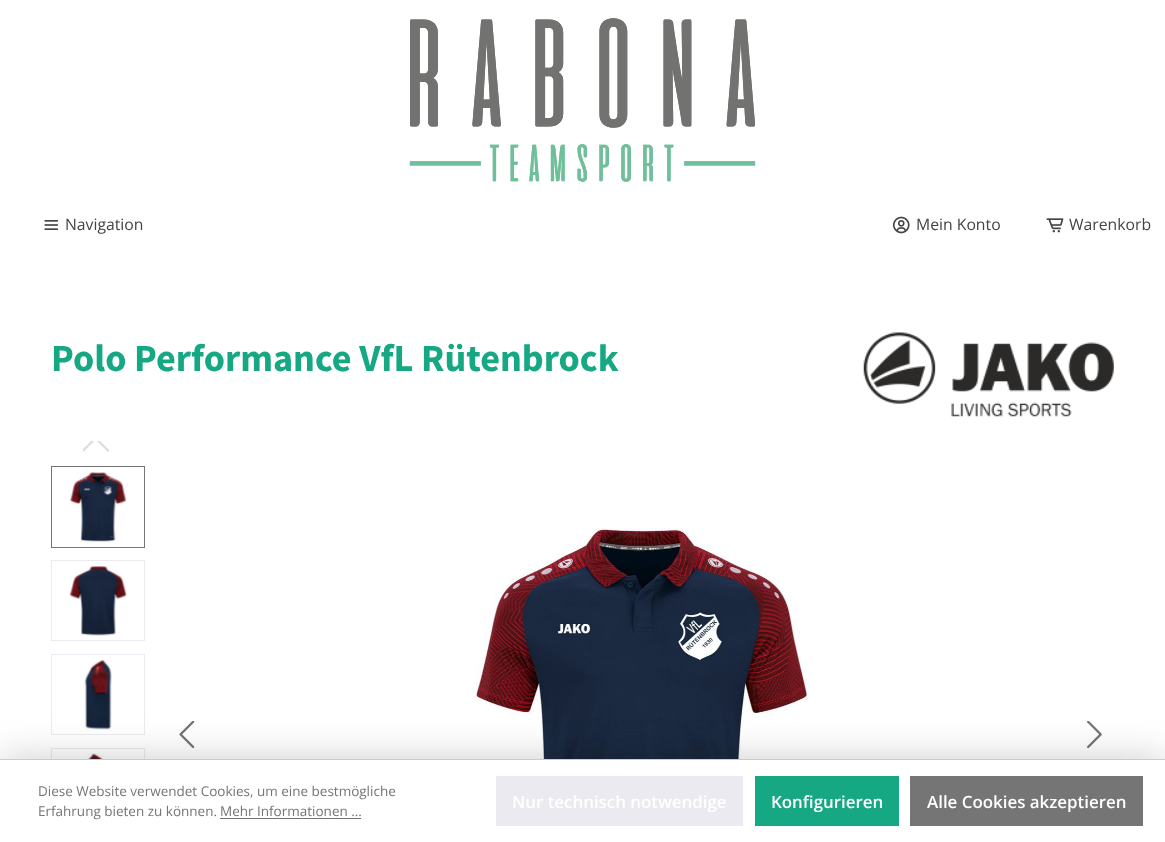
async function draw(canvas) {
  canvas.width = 1165;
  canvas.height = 842;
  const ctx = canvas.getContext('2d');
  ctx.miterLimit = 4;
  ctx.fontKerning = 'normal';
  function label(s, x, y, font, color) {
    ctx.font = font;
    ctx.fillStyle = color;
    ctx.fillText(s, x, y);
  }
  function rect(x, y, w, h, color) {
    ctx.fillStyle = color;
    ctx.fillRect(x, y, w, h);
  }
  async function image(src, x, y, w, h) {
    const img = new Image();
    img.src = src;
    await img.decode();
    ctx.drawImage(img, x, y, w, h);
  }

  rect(0, 0, 1165, 842, '#fff');
  await image('assets/img1.png', 409, 18, 347, 164);
  await image('assets/img2.png', 44, 220, 14, 10);
  label('Navigation', 65, 230, '15.75px Open Sans', '#444');
  await image('assets/img3.png', 892, 216, 18, 18);
  label('Mein Konto', 916, 230, '15.75px Open Sans', '#444');
  await image('assets/img4.png', 1046, 218, 18, 15);
  label('Warenkorb', 1069, 230, '15.75px Open Sans', '#444');
  label('Polo Performance VfL Rütenbrock', 51, 371, 'bold 38.25px Source Sans Pro', '#15a883');
  await image('assets/img5.png', 863, 332, 251, 85);
  await image('assets/img6.png', 83, 441, 27, 11);
  ctx.strokeStyle = '#757575';
  ctx.strokeRect(51.5, 466.5, 93, 81);
  await image('assets/img7.png', 70, 472, 57, 70);
  ctx.strokeStyle = '#eaeaf0';
  ctx.strokeRect(51.5, 560.5, 93, 80);
  await image('assets/img8.png', 69, 566, 58, 70);
  ctx.strokeRect(51.5, 654.5, 93, 80);
  await image('assets/img9.png', 84, 659, 28, 71);
  ctx.strokeRect(51.5, 748.5, 93, 80);
  await image('assets/img10.png', 84, 753, 28, 6);
  await image('assets/img11.png', 476, 528, 332, 231);
  await image('assets/img12.png', 179, 721, 16, 28);
  await image('assets/img13.png', 1087, 721, 15, 28);
  ctx.fillStyle = '#00000033';
  ctx.filter = 'blur(19px)';
  ctx.beginPath();
  ctx.rect(0, 759, 1165, 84);
  ctx.fill();
  ctx.filter = 'none';
  rect(0, 760, 1165, 82, '#fff');
  rect(0, 759, 1165, 1, '#ccc');
  label('Diese Website verwendet Cookies, um eine bestmögliche', 38, 796, '13.5px Open Sans', '#757575');
  label('Erfahrung bieten zu können.', 38, 816, '13.5px Open Sans', '#757575');
  label('Mehr Informationen ...', 220, 816, '13.5px Open Sans', '#757575');
  rect(220, 818, 141, 1, '#757575');
  rect(496, 776, 247, 50, '#eaeaf0');
  label('Nur technisch notwendige', 512, 808, '600 16.9px Open Sans', '#fff');
  rect(755, 776, 144, 50, '#15a883');
  label('Konfigurieren', 771, 808, '600 16.9px Open Sans', '#fff');
  rect(910, 776, 233, 50, '#757575');
  label('Alle Cookies akzeptieren', 927, 808, '600 16.9px Open Sans', '#fff');
}

draw(document.querySelector('canvas'));
